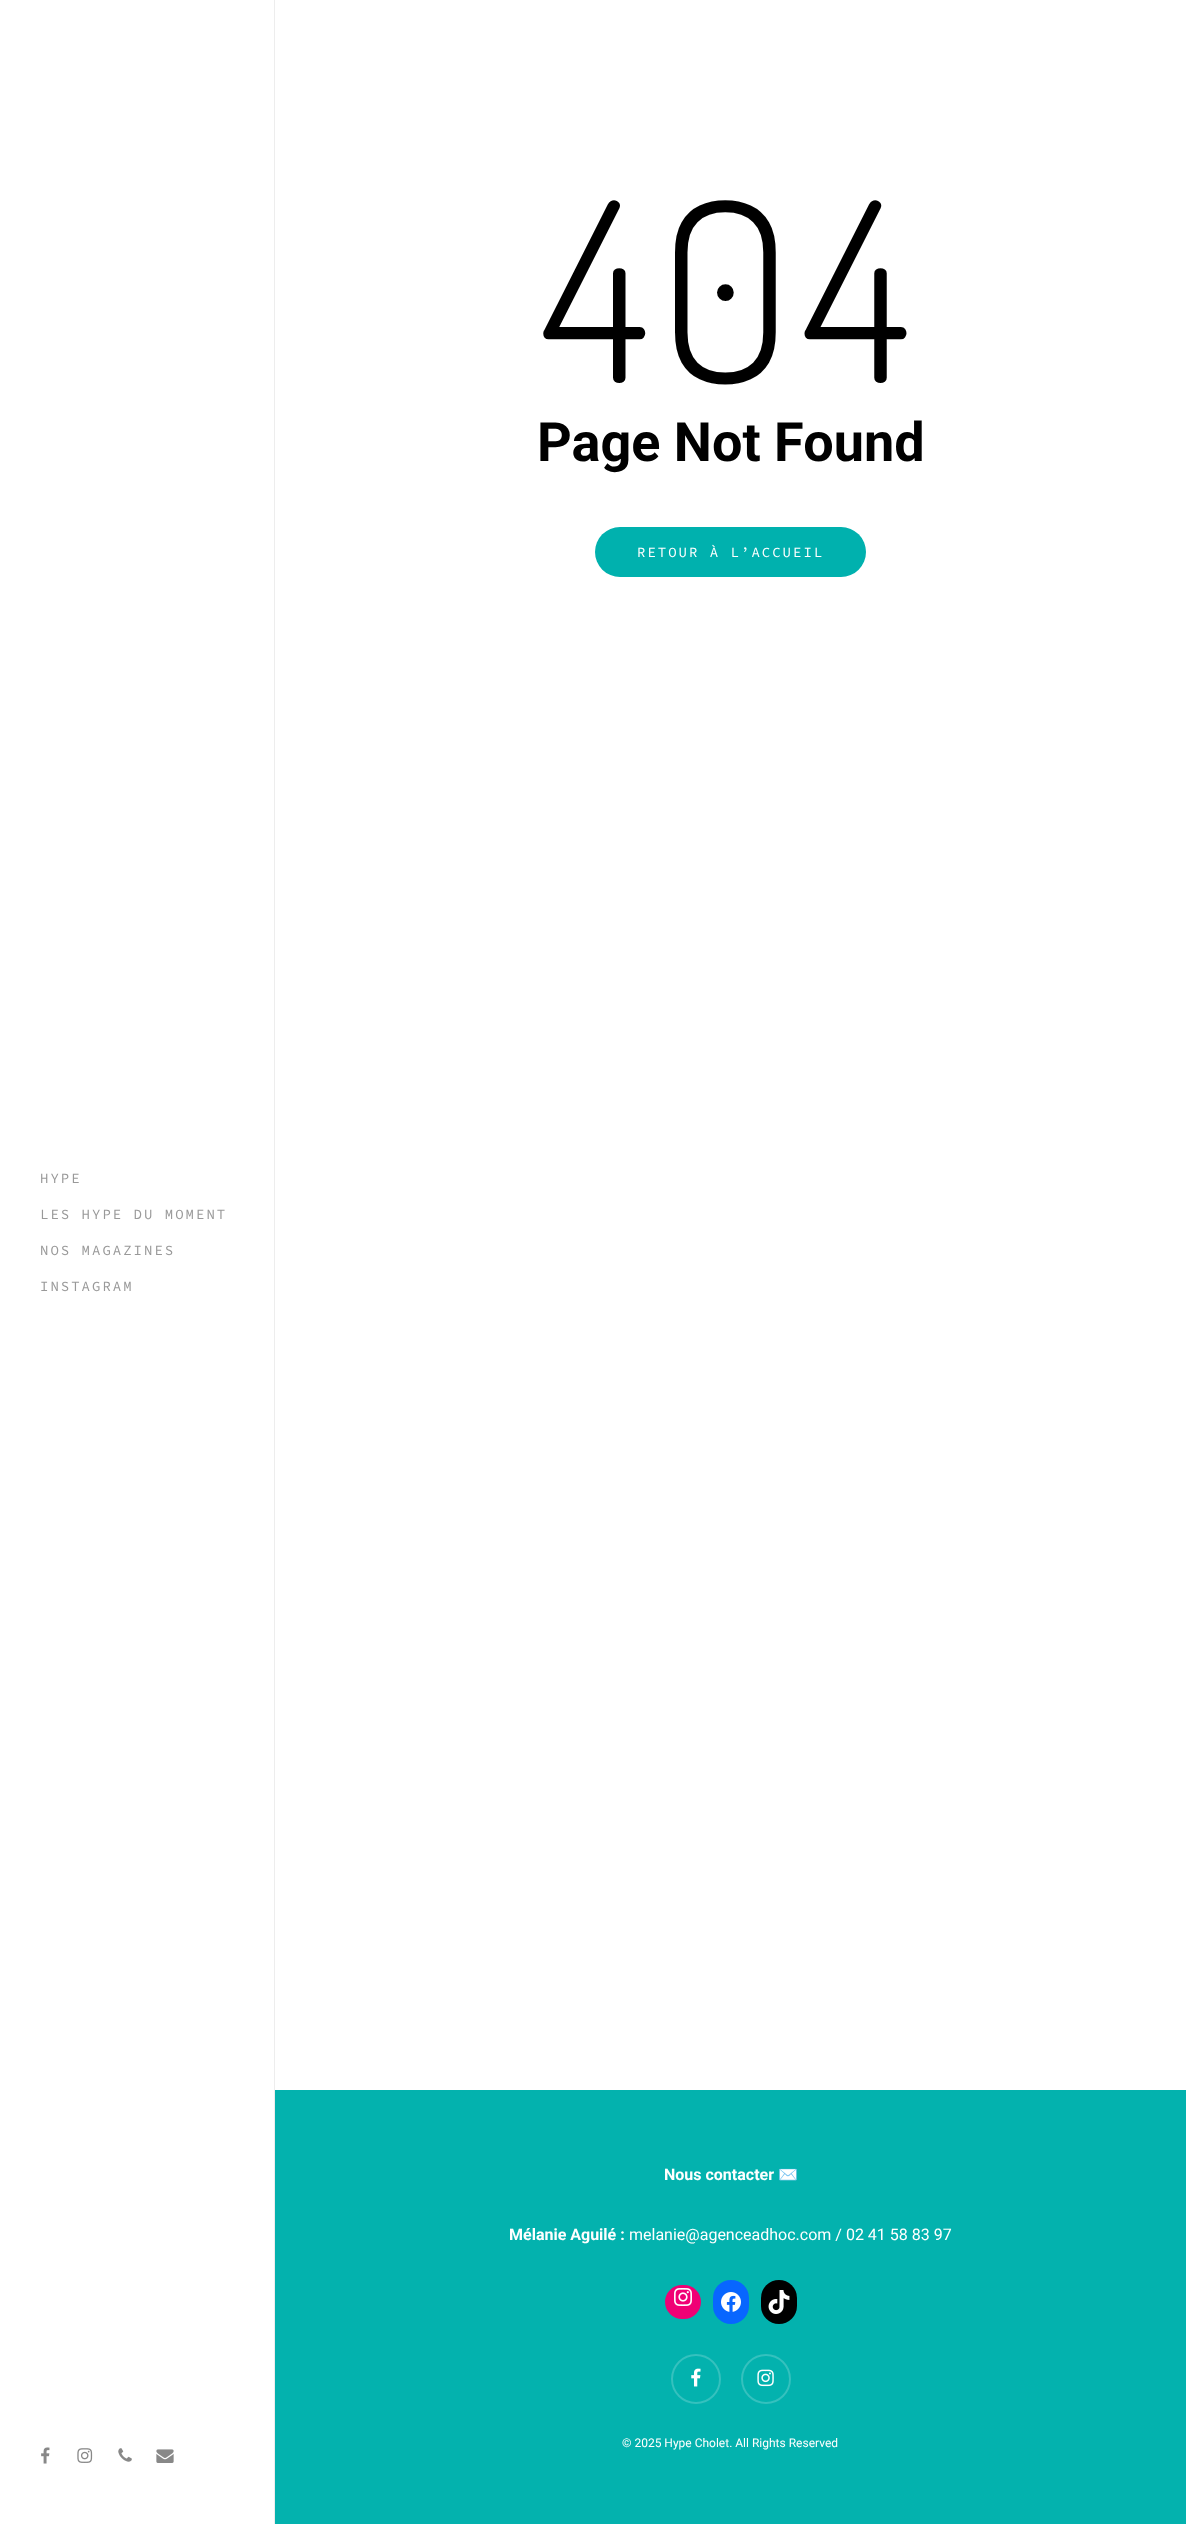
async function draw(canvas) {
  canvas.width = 1186;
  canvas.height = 2524;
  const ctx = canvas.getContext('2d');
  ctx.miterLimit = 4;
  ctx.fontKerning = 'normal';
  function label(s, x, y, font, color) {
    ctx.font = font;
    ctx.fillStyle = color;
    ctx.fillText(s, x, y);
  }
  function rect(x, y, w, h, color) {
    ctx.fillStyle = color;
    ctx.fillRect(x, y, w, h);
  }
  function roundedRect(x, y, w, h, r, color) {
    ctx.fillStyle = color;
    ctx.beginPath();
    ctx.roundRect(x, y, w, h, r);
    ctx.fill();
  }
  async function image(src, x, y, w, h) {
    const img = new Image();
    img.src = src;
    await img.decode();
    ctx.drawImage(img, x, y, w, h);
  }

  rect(0, 0, 1186, 2524, '#fff');
  rect(274, 0, 1, 2524, '#ededed');
  ctx.letterSpacing = '2px';
  label('HYPE', 40, 1183, '200 14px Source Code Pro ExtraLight', '#999');
  label('LES HYPE DU MOMENT', 40, 1219, '200 14px Source Code Pro ExtraLight', '#999');
  label('NOS MAGAZINES', 40, 1255, '200 14px Source Code Pro ExtraLight', '#999');
  label('INSTAGRAM', 40, 1291, '200 14px Source Code Pro ExtraLight', '#999');
  await image('assets/img1.png', 41, 2447, 9, 17);
  await image('assets/img2.png', 77, 2448, 16, 15);
  await image('assets/img3.png', 118, 2448, 14, 14);
  await image('assets/img4.png', 156, 2449, 18, 14);
  ctx.letterSpacing = '11px';
  label('404', 541, 383, '300 250px Dosis', '#000');
  ctx.letterSpacing = '0px';
  label('Page Not Found', 537, 461, 'bold 54px Roboto', '#000');
  roundedRect(595, 527, 271, 50, 25, '#00b1ae');
  ctx.letterSpacing = '2px';
  label('RETOUR À L’ACCUEIL', 637, 557, '200 14px Source Code Pro ExtraLight', '#fff');
  rect(275, 2090, 911, 434, '#03b2ae');
  ctx.letterSpacing = '0px';
  label('Nous contacter', 664, 2180, 'bold 16px Roboto', '#fff');
  label('✉️', 778, 2180, '16px Noto Color Emoji', '#fff');
  label('Mélanie Aguilé :', 509, 2240, 'bold 16px Roboto', '#fff');
  label('melanie@agenceadhoc.com / 02 41 58 83 97', 629, 2240, '16px Roboto', '#fff');
  roundedRect(665, 2285, 36, 34, 17, '#f00075');
  await image('assets/img5.png', 674, 2288, 18, 18);
  roundedRect(713, 2280, 36, 44, 18, '#0866ff');
  await image('assets/img6.png', 721, 2292, 20, 20);
  roundedRect(761, 2280, 36, 44, 18, '#000');
  await image('assets/img7.png', 768, 2290, 22, 24);
  await image('assets/img8.png', 691, 2368, 10, 19);
  ctx.beginPath();
  ctx.arc(696, 2379, 24, 0, 2 * Math.PI);
  ctx.strokeStyle = '#35c1be';
  ctx.lineWidth = 2;
  ctx.stroke();
  await image('assets/img9.png', 757, 2369, 17, 18);
  ctx.beginPath();
  ctx.arc(766, 2379, 24, 0, 2 * Math.PI);
  ctx.stroke();
  label('© 2025 Hype Cholet. All Rights Reserved', 622, 2447, '12px Roboto', '#fff');
}

draw(document.querySelector('canvas'));
